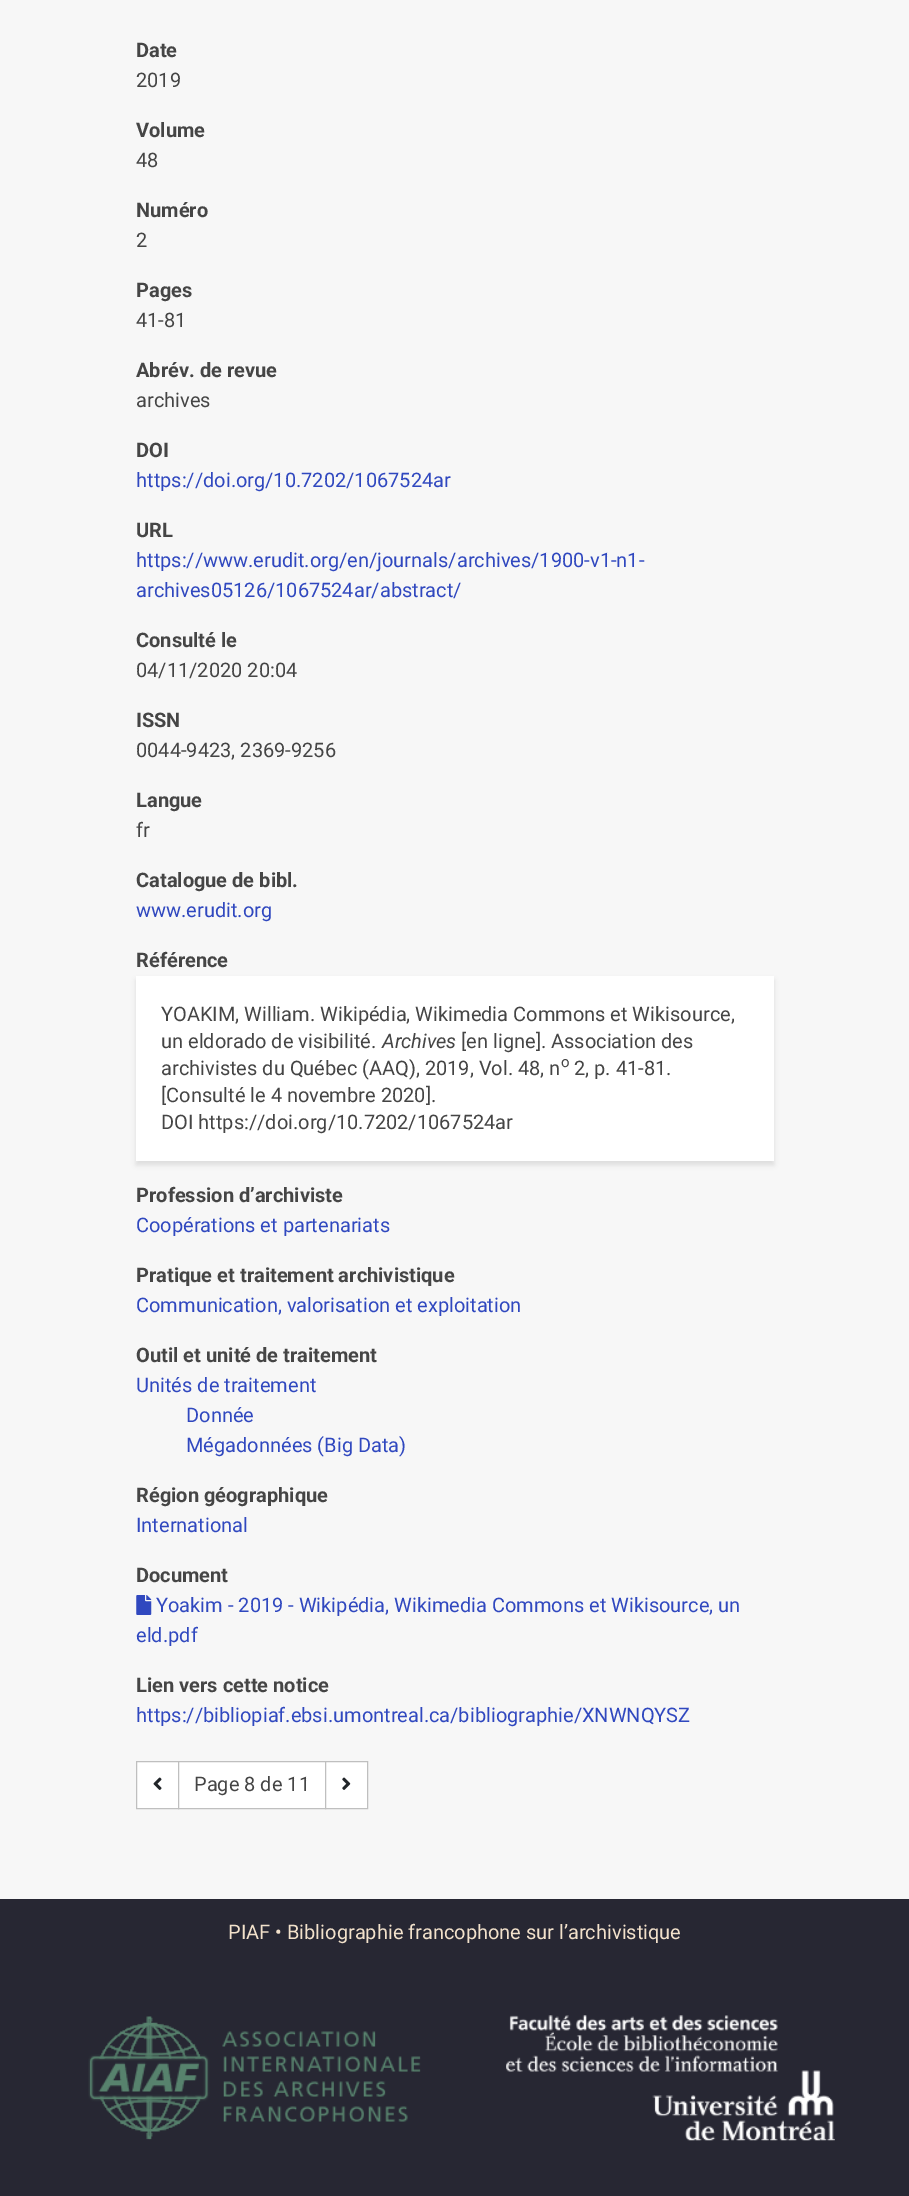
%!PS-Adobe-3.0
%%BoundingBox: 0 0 909 2196
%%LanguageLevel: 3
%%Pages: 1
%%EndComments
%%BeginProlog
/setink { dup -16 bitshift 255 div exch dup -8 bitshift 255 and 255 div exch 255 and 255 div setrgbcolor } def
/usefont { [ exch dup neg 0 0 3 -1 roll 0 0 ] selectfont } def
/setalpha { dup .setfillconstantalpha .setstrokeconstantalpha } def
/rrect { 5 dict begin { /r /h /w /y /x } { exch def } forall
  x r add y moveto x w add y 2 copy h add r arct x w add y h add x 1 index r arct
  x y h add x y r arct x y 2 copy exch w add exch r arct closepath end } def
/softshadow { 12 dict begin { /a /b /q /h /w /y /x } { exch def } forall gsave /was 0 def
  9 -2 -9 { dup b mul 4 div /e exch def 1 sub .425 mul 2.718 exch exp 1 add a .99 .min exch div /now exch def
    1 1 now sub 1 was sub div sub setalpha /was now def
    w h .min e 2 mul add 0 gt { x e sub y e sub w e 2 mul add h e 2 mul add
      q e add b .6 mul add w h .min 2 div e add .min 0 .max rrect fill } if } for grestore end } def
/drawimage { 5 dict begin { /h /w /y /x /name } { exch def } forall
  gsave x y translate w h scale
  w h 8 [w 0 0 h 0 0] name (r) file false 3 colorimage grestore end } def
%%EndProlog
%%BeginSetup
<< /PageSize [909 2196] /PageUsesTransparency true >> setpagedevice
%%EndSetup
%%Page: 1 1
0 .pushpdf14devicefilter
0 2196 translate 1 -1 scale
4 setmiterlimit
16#F7F7F7 setink
0 0 909 2196 rectfill
/Roboto-Bold 20 usefont
16#454545 setink
136 57 moveto (Date) show
/Roboto-Regular 20 usefont
136 87 moveto (2019) show
/Roboto-Bold 20 usefont
136 137 moveto (Volume) show
/Roboto-Regular 20 usefont
136 167 moveto (48) show
/Roboto-Bold 20 usefont
136 217 moveto (Numéro) show
/Roboto-Regular 20 usefont
136 247 moveto (2) show
/Roboto-Bold 20 usefont
136 297 moveto (Pages) show
/Roboto-Regular 20 usefont
136 327 moveto (41-81) show
/Roboto-Bold 20 usefont
136 377 moveto (Abrév. de revue) show
/Roboto-Regular 20 usefont
136 407 moveto (archives) show
/Roboto-Bold 20 usefont
136 457 moveto (DOI) show
/Roboto-Regular 20 usefont
16#3048BF setink
136 487 moveto (https://doi.org/10.7202/1067524ar) show
/Roboto-Bold 20 usefont
16#454545 setink
136 537 moveto (URL) show
/Roboto-Regular 20 usefont
16#3048BF setink
136 567 moveto (https://www.erudit.org/en/journals/archives/1900-v1-n1-) show
136 597 moveto (archives05126/1067524ar/abstract/) show
/Roboto-Bold 20 usefont
16#454545 setink
136 647 moveto (Consulté le) show
/Roboto-Regular 20 usefont
136 677 moveto (04/11/2020 20:04) show
/Roboto-Bold 20 usefont
136 727 moveto (ISSN) show
/Roboto-Regular 20 usefont
136 757 moveto (0044-9423, 2369-9256) show
/Roboto-Bold 20 usefont
136 807 moveto (Langue) show
/Roboto-Regular 20 usefont
136 837 moveto (fr) show
/Roboto-Bold 20 usefont
136 887 moveto (Catalogue de bibl.) show
/Roboto-Regular 20 usefont
16#3048BF setink
136 917 moveto (www.erudit.org) show
/Roboto-Bold 20 usefont
16#454545 setink
136 967 moveto (Référence) show
16#000000 setink
136 980 638 185 0 2.5 0.1 softshadow
16#FFFFFF setink
136 976 638 185 rectfill
/Roboto-Regular 20 usefont
16#454545 setink
161 1021 moveto (YOAKIM, William. Wikipédia, Wikimedia Commons et Wikisource,) show
161 1048 moveto (un eldorado de visibilité.) show
/Roboto-Italic 20 usefont
382 1048 moveto (Archives) show
/Roboto-Regular 20 usefont
461 1048 moveto ([en ligne]. Association des) show
161 1075 moveto (archivistes du Québec \(AAQ\), 2019, Vol. 48, n) show
/Roboto-Regular 15 usefont
561 1067 moveto (o) show
/Roboto-Regular 20 usefont
[
    [(2, p. 41‑81.) 574 1075]
    [([Consulté le 4 novembre 2020].) 161 1102]
    [(DOI https://doi.org/10.7202/1067524ar) 161 1129]
] { aload pop moveto show } forall
/Roboto-Bold 20 usefont
136 1202 moveto (Profession d’archiviste) show
/Roboto-Regular 20 usefont
16#3048BF setink
136 1232 moveto (Coopérations et partenariats) show
/Roboto-Bold 20 usefont
16#454545 setink
136 1282 moveto (Pratique et traitement archivistique) show
/Roboto-Regular 20 usefont
16#3048BF setink
136 1312 moveto (Communication, valorisation et exploitation) show
/Roboto-Bold 20 usefont
16#454545 setink
136 1362 moveto (Outil et unité de traitement) show
/Roboto-Regular 20 usefont
16#3048BF setink
[
    [(Unités de traitement) 136 1392]
    [(Donnée) 186 1422]
    [(Mégadonnées \(Big Data\)) 186 1452]
] { aload pop moveto show } forall
/Roboto-Bold 20 usefont
16#454545 setink
136 1502 moveto (Région géographique) show
/Roboto-Regular 20 usefont
16#3048BF setink
136 1532 moveto (International) show
/Roboto-Bold 20 usefont
16#454545 setink
136 1582 moveto (Document) show
(img1.raw) 136 1595 16 20 drawimage
/Roboto-Regular 20 usefont
16#3048BF setink
156 1612 moveto (Yoakim - 2019 - Wikipédia, Wikimedia Commons et Wikisource, un) show
136 1642 moveto (eld.pdf) show
/Roboto-Bold 20 usefont
16#454545 setink
136 1692 moveto (Lien vers cette notice) show
/Roboto-Regular 20 usefont
16#3048BF setink
136 1722 moveto (https://bibliopiaf.ebsi.umontreal.ca/bibliographie/XNWNQYSZ) show
16#FFFFFF setink
136.5 1761.5 moveto 178.5 1761.5 lineto 178.5 1808.5 lineto 136.5 1808.5 lineto closepath gsave fill grestore
16#BFBFBF setink
stroke
(img2.raw) 153 1777 9 13 drawimage
16#FFFFFF setink
178.5 1761.5 moveto 325.5 1761.5 lineto 325.5 1808.5 lineto 178.5 1808.5 lineto closepath gsave fill grestore
16#BFBFBF setink
stroke
16#454545 setink
194 1791 moveto (Page 8 de 11) show
16#FFFFFF setink
325.5 1761.5 moveto 367.5 1761.5 lineto 367.5 1808.5 lineto 325.5 1808.5 lineto closepath gsave fill grestore
16#BFBFBF setink
stroke
(img3.raw) 342 1777 9 13 drawimage
16#272733 setink
0 1899 909 297 rectfill
16#F2E1CB setink
228 1939 moveto (PIAF • Bibliographie francophone sur l’archivistique) show
(img4.raw) 88 2016 333 124 drawimage
(img5.raw) 506 2015 329 126 drawimage
.poppdf14devicefilter showpage
%%EOF
